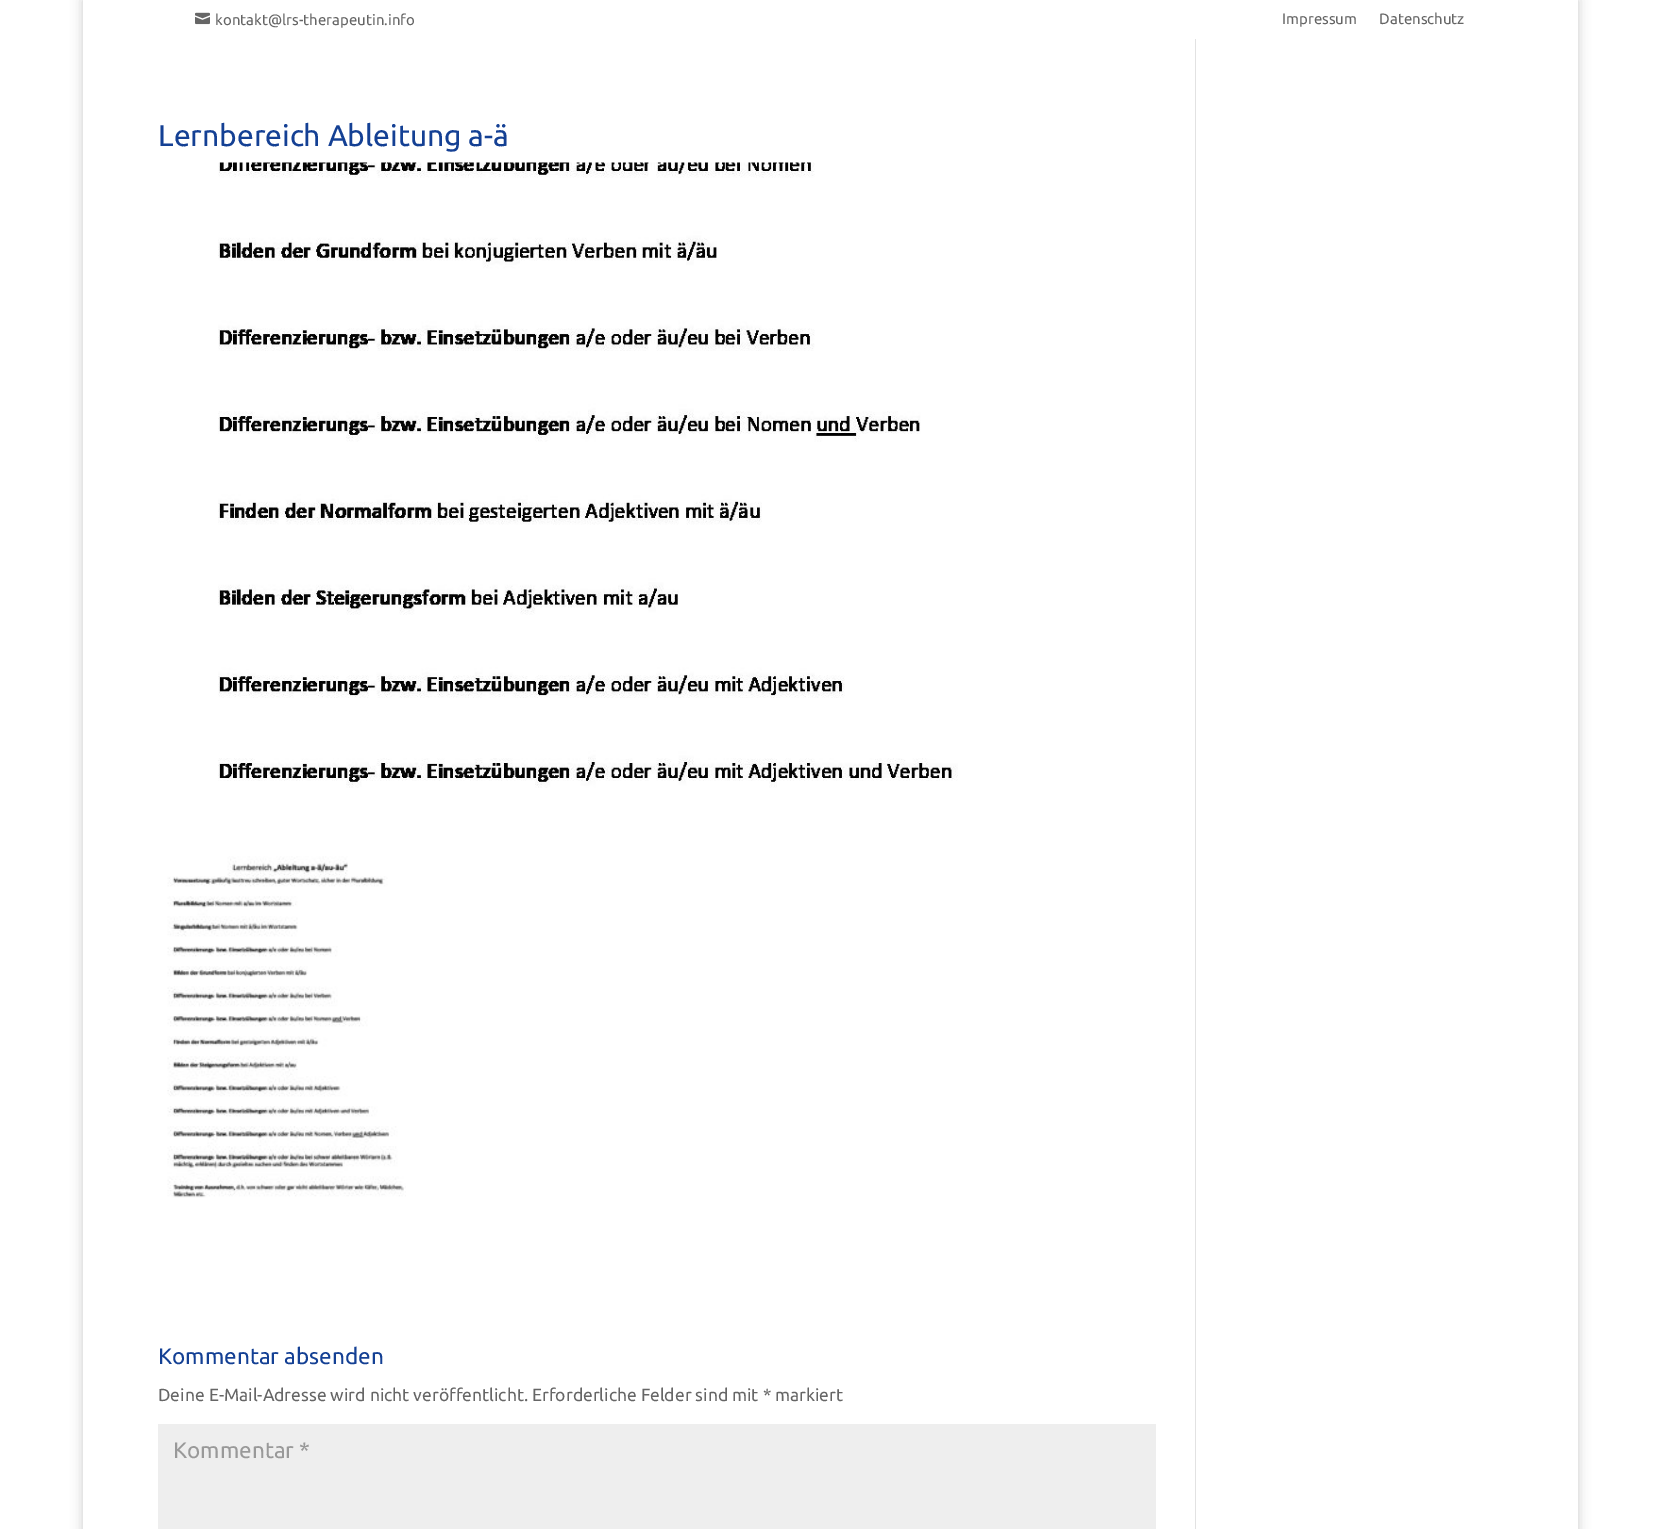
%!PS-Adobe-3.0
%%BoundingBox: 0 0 1659 1529
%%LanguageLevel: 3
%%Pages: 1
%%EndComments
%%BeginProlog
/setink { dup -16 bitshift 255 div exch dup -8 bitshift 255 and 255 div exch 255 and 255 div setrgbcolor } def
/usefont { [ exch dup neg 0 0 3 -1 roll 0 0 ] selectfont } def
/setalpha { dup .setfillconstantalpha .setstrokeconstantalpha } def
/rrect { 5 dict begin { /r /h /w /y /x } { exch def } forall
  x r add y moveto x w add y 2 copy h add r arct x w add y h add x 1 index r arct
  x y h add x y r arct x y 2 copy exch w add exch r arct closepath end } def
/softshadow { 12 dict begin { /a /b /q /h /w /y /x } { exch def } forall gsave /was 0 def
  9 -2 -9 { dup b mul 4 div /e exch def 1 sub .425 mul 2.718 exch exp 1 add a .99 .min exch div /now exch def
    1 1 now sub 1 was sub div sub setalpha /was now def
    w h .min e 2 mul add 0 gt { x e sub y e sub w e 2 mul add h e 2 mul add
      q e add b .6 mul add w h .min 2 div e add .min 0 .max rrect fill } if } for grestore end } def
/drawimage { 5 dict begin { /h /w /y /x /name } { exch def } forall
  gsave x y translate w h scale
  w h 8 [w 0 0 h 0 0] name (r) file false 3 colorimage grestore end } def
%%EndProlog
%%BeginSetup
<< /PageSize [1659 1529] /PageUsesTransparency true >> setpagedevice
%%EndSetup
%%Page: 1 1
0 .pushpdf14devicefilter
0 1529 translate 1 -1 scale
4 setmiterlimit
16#FFFFFF setink
0 0 1659 1529 rectfill
16#000000 setink
83 0 1495 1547 0 6 0.2 softshadow
16#FFFFFF setink
83 0 1495 1529 rectfill
(img1.raw) 195 12 15 13 drawimage
/Ubuntu-Regular 15 usefont
16#666666 setink
[
    [(kontakt@lrs-therapeutin.info) 215 25]
    [(Impressum) 1282 24]
    [(Datenschutz) 1379 24]
] { aload pop moveto show } forall
/Ubuntu-Regular 30 usefont
16#144094 setink
158 146 moveto (Lernbereich Ableitung a-ä) show
(img2.raw) 218 162 740 626 drawimage
(img3.raw) 167 856 239 342 drawimage
/Ubuntu-Regular 22.5 usefont
158 1364 moveto (Kommentar absenden) show
/Ubuntu-Regular 17.5 usefont
16#666666 setink
158 1401 moveto (Deine E-Mail-Adresse wird nicht veröffentlicht. Erforderliche Felder sind mit * markiert) show
16#EEEEEE setink
158 1424 998 105 rectfill
/Ubuntu-Regular 22.5 usefont
16#999999 setink
173 1458 moveto (Kommentar *) show
16#E2E2E2 setink
1195 39 1 1490 rectfill
.poppdf14devicefilter showpage
%%EOF
